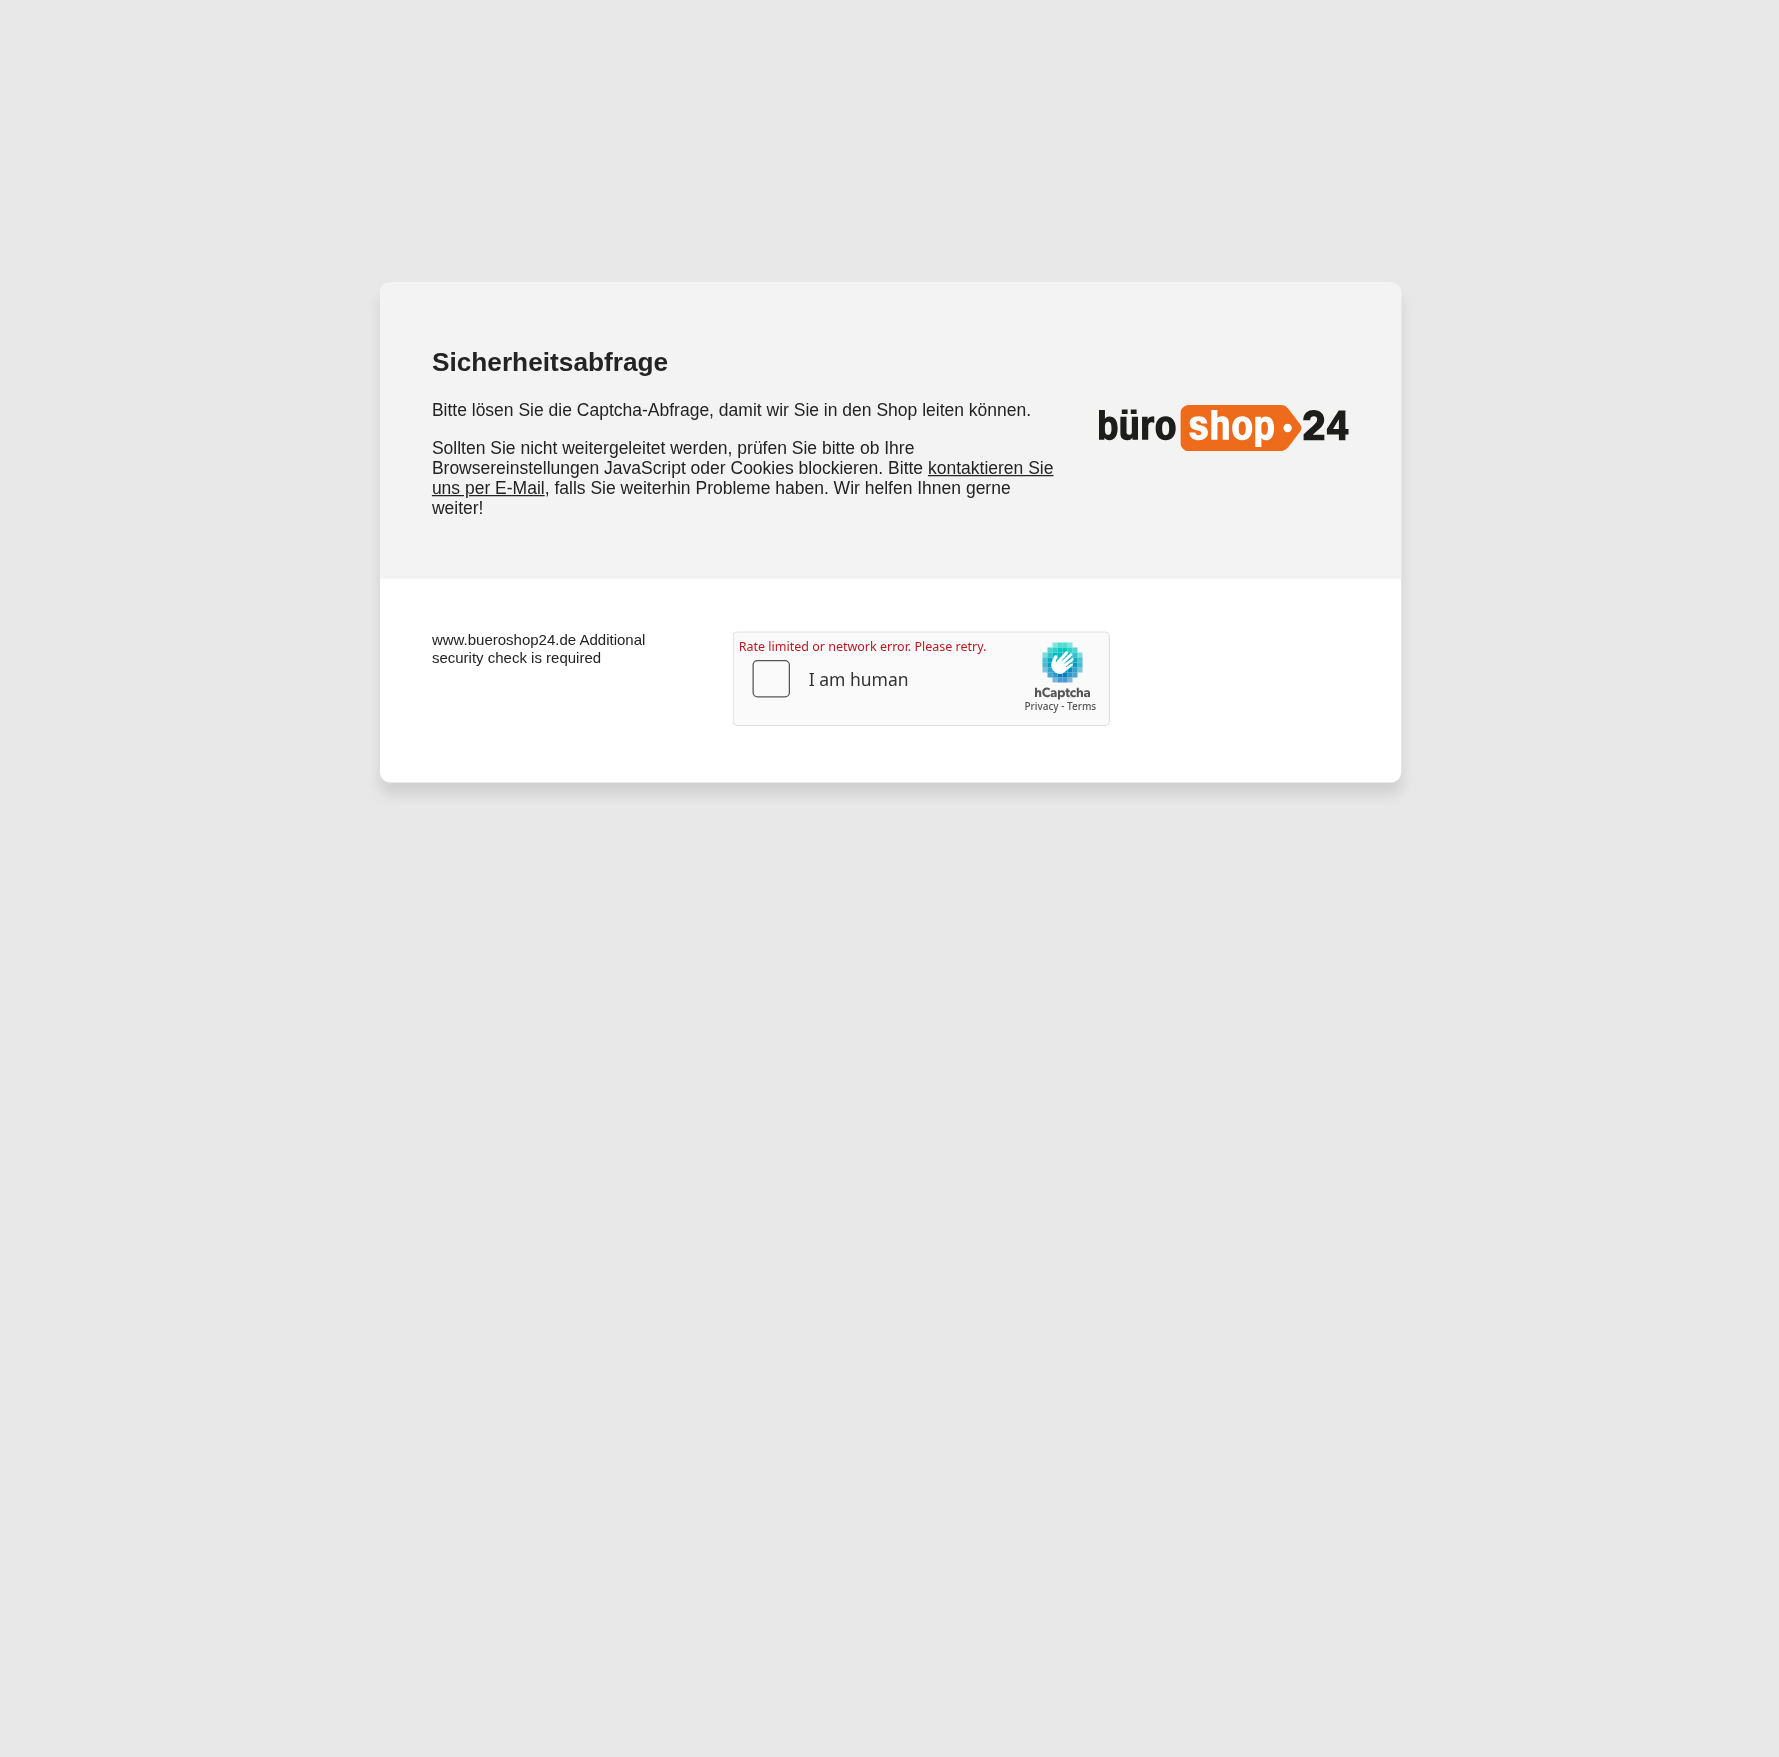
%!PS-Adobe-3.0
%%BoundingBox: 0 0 1779 1757
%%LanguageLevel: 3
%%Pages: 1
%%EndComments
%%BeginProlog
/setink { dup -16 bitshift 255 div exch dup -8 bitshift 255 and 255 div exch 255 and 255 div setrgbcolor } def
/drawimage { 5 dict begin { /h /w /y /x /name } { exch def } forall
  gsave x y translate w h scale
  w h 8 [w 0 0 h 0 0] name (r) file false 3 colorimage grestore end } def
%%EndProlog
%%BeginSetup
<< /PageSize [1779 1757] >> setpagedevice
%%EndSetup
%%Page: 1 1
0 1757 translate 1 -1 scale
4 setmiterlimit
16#FFFFFF setink
0 0 1779 1757 rectfill
(img1.raw) 0 0 1779 1757 drawimage
showpage
%%EOF
